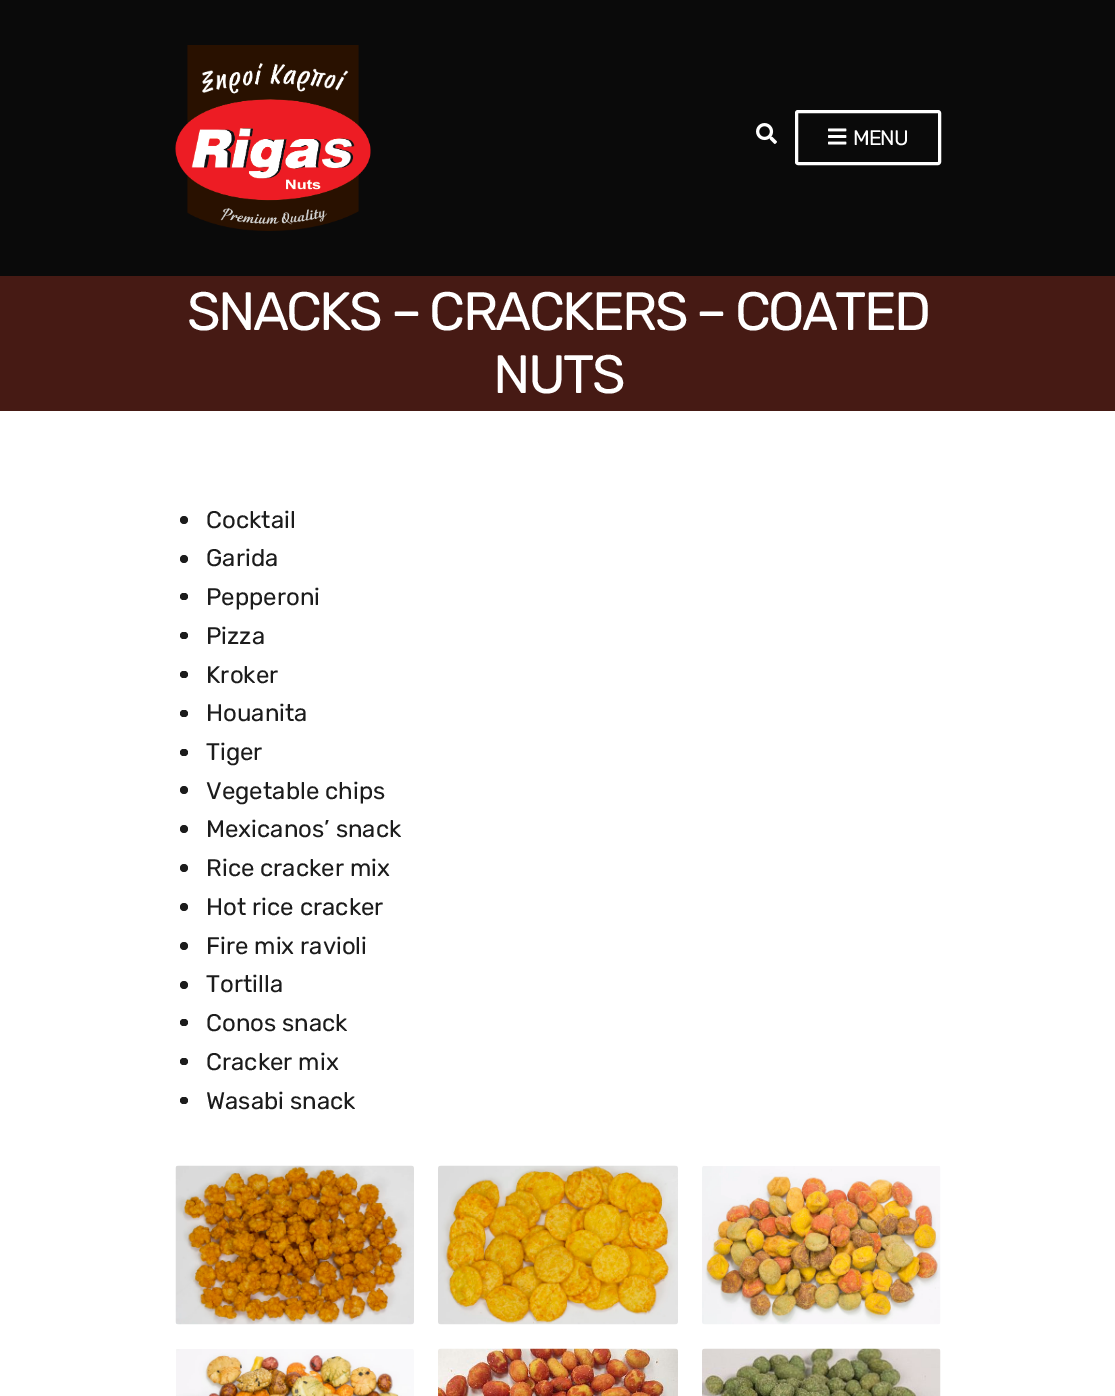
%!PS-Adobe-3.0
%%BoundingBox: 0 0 1115 1396
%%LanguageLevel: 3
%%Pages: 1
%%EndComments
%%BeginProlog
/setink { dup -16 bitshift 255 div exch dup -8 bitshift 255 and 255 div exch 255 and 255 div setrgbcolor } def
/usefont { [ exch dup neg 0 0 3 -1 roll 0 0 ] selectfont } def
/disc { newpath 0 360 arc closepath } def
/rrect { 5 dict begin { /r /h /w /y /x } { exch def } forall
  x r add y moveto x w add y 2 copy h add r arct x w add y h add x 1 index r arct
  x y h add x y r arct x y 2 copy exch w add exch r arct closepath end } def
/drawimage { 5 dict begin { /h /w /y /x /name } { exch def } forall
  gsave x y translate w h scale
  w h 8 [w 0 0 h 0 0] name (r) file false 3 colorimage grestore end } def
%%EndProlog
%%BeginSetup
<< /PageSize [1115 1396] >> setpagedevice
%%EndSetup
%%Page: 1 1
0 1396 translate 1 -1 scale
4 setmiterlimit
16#FFFFFF setink
0 0 1115 1396 rectfill
16#0A0A0A setink
0 0 1115 276 rectfill
(img1.raw) 175 45 196 186 drawimage
(img2.raw) 756 123 21 21 drawimage
16#FFFFFF setink
3 setlinewidth
796.5 111.5 143 52 1.5 rrect stroke
(img3.raw) 828 128 19 17 drawimage
/Rubik-Regular 21 usefont
853 145 moveto -1 0 (MENU) ashow
16#461A14 setink
0 276 1115 135 rectfill
/Rubik-Regular 54 usefont
16#FFFFFF setink
187 330 moveto -2.7 0 (SNACKS – CRACKERS – COATED) ashow
493 393 moveto -2.7 0 (NUTS) ashow
16#1C1C1C setink
184 520 4 disc fill
/Rubik-Regular 24 usefont
206 528 moveto (Cocktail) show
184 559 4 disc fill
206 566 moveto (Garida) show
180 593 8 7 3.5 rrect fill
206 605 moveto (Pepperoni) show
180 632 8 7 3.5 rrect fill
206 644 moveto (Pizza) show
180 671 8 7 3.5 rrect fill
206 683 moveto (Kroker) show
180 710 8 7 3.5 rrect fill
206 721 moveto (Houanita) show
180 749 8 7 3.5 rrect fill
206 760 moveto (Tiger) show
184 790 4 disc fill
206 799 moveto (Vegetable chips) show
184 829 4 disc fill
206 837 moveto (Mexicanos’ snack) show
184 868 4 disc fill
206 876 moveto (Rice cracker mix) show
184 907 4 disc fill
206 915 moveto (Hot rice cracker) show
184 946 4 disc fill
206 954 moveto (Fire mix ravioli) show
184 985 4 disc fill
206 992 moveto (Tortilla) show
180 1019 8 7 3.5 rrect fill
206 1031 moveto (Conos snack) show
180 1058 8 7 3.5 rrect fill
206 1070 moveto (Cracker mix) show
180 1097 8 7 3.5 rrect fill
206 1109 moveto (Wasabi snack) show
(img4.raw) 175 1165 239 160 drawimage
(img5.raw) 438 1165 240 160 drawimage
(img6.raw) 702 1166 239 159 drawimage
(img7.raw) 176 1349 238 47 drawimage
(img8.raw) 438 1348 240 48 drawimage
(img9.raw) 702 1348 239 48 drawimage
showpage
%%EOF
